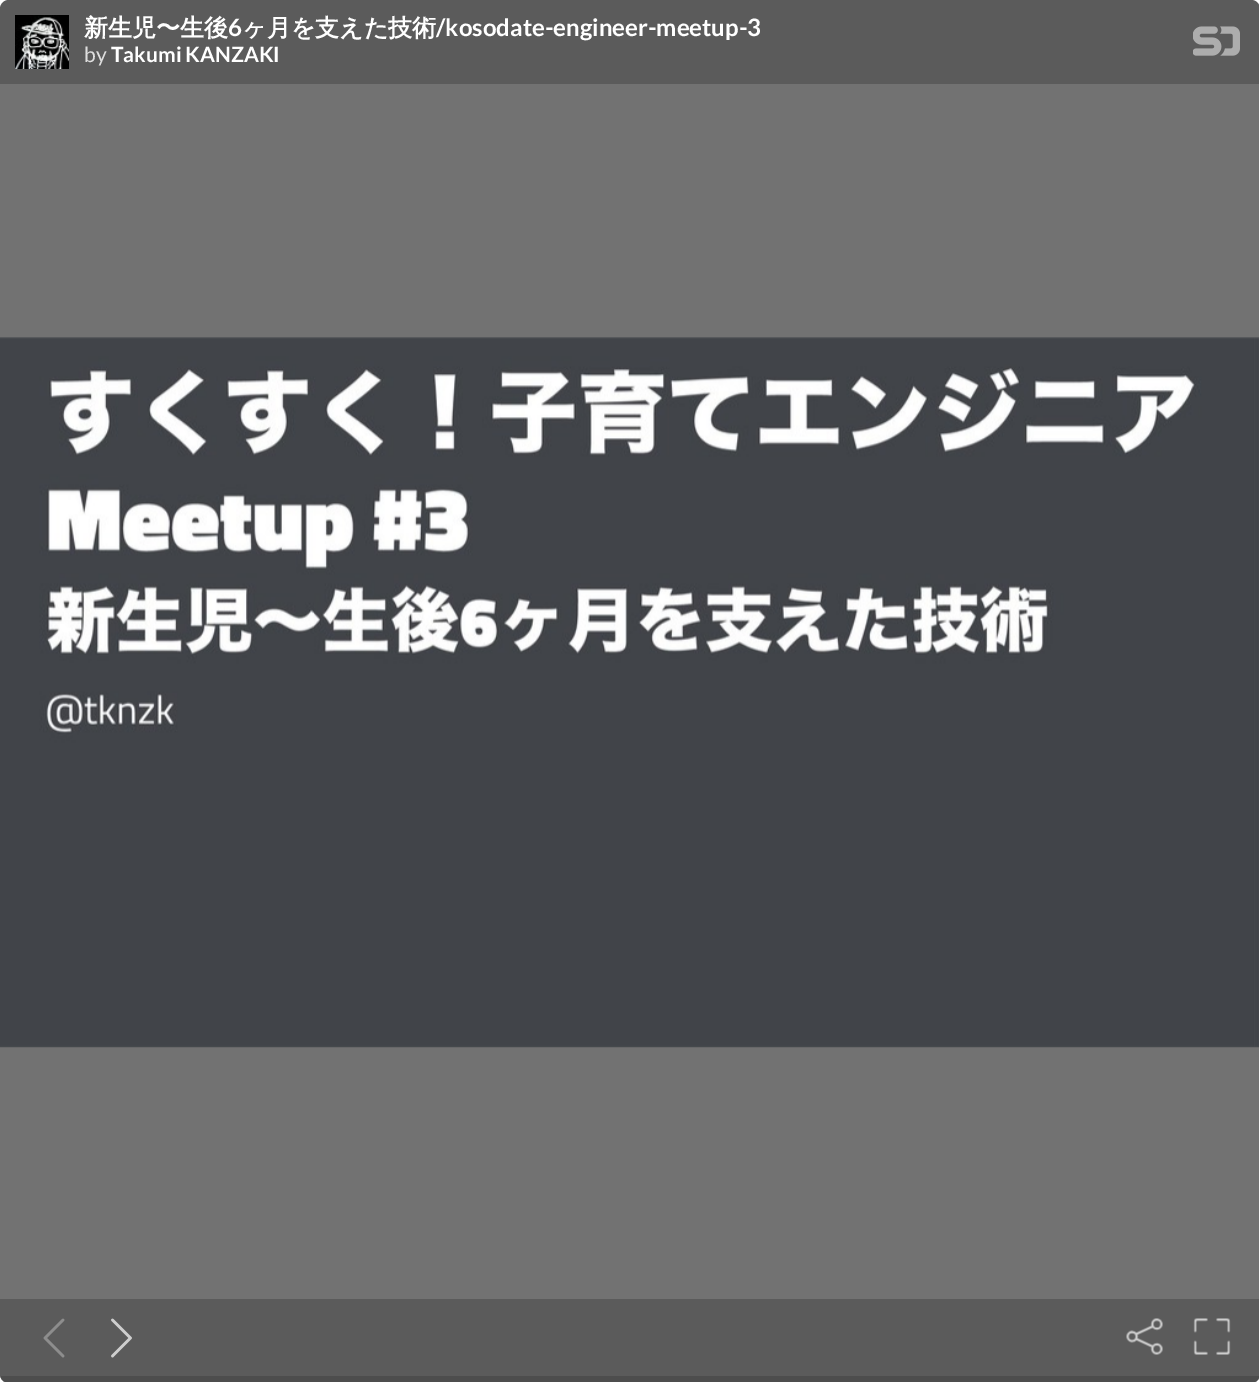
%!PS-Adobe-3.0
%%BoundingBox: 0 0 1259 1382
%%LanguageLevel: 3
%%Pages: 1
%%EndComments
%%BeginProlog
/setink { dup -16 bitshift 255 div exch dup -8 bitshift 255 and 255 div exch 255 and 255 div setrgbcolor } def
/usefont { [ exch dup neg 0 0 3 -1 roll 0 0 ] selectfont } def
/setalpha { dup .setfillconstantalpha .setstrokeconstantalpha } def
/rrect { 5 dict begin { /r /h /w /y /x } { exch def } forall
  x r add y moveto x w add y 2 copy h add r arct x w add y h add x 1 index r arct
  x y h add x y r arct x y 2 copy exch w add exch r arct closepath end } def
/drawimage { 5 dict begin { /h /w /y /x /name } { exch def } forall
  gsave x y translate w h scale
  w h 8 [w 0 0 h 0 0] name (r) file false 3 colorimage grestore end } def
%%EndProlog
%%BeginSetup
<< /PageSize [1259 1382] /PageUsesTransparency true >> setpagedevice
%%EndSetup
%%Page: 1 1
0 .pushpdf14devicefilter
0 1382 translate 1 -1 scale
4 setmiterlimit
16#FFFFFF setink
0 0 1259 1382 rectfill
16#727272 setink
0 0 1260 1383 9 rrect fill
(img1.raw) 0 337 1259 711 drawimage
0.2 setalpha
16#000000 setink
9 0 moveto 1251 0 lineto 1256 0 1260 4 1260 9 curveto 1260 84 lineto 0 84 lineto 0 9 lineto 0 4 4 0 9 0 curveto closepath fill
1 setalpha
(img2.raw) 15 15 54 54 drawimage
/WenQuanYiZenHei-Bold 24 usefont
16#FFFFFF setink
84 36 moveto (新生児〜生後) show
/Lato-Bold 24 usefont
228 36 moveto (6) show
/WenQuanYiZenHei-Bold 24 usefont
242 36 moveto (ヶ月を支えた技術) show
/Lato-Bold 24 usefont
436 36 moveto (/kosodate-engineer-meetup-3) show
(img3.raw) 1193 26 47 30 drawimage
/Lato-Regular 21 usefont
16#DEDEDE setink
84 62 moveto (by) show
/Lato-Bold 21 usefont
16#FFFFFF setink
111 62 moveto (Takumi KANZAKI) show
0.2 setalpha
16#000000 setink
0 1299 moveto 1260 1299 lineto 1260 1374 lineto 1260 1379 1256 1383 1251 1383 curveto 9 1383 lineto 4 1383 0 1379 0 1374 curveto closepath fill
1 setalpha
(img4.raw) 43 1318 22 40 drawimage
(img5.raw) 111 1318 21 40 drawimage
(img6.raw) 1126 1318 37 37 drawimage
(img7.raw) 1193 1318 38 37 drawimage
gsave
0 0 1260 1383 9 rrect clip newpath
0.15 setalpha
0 1376 1259 6 rectfill
grestore
.poppdf14devicefilter showpage
%%EOF
